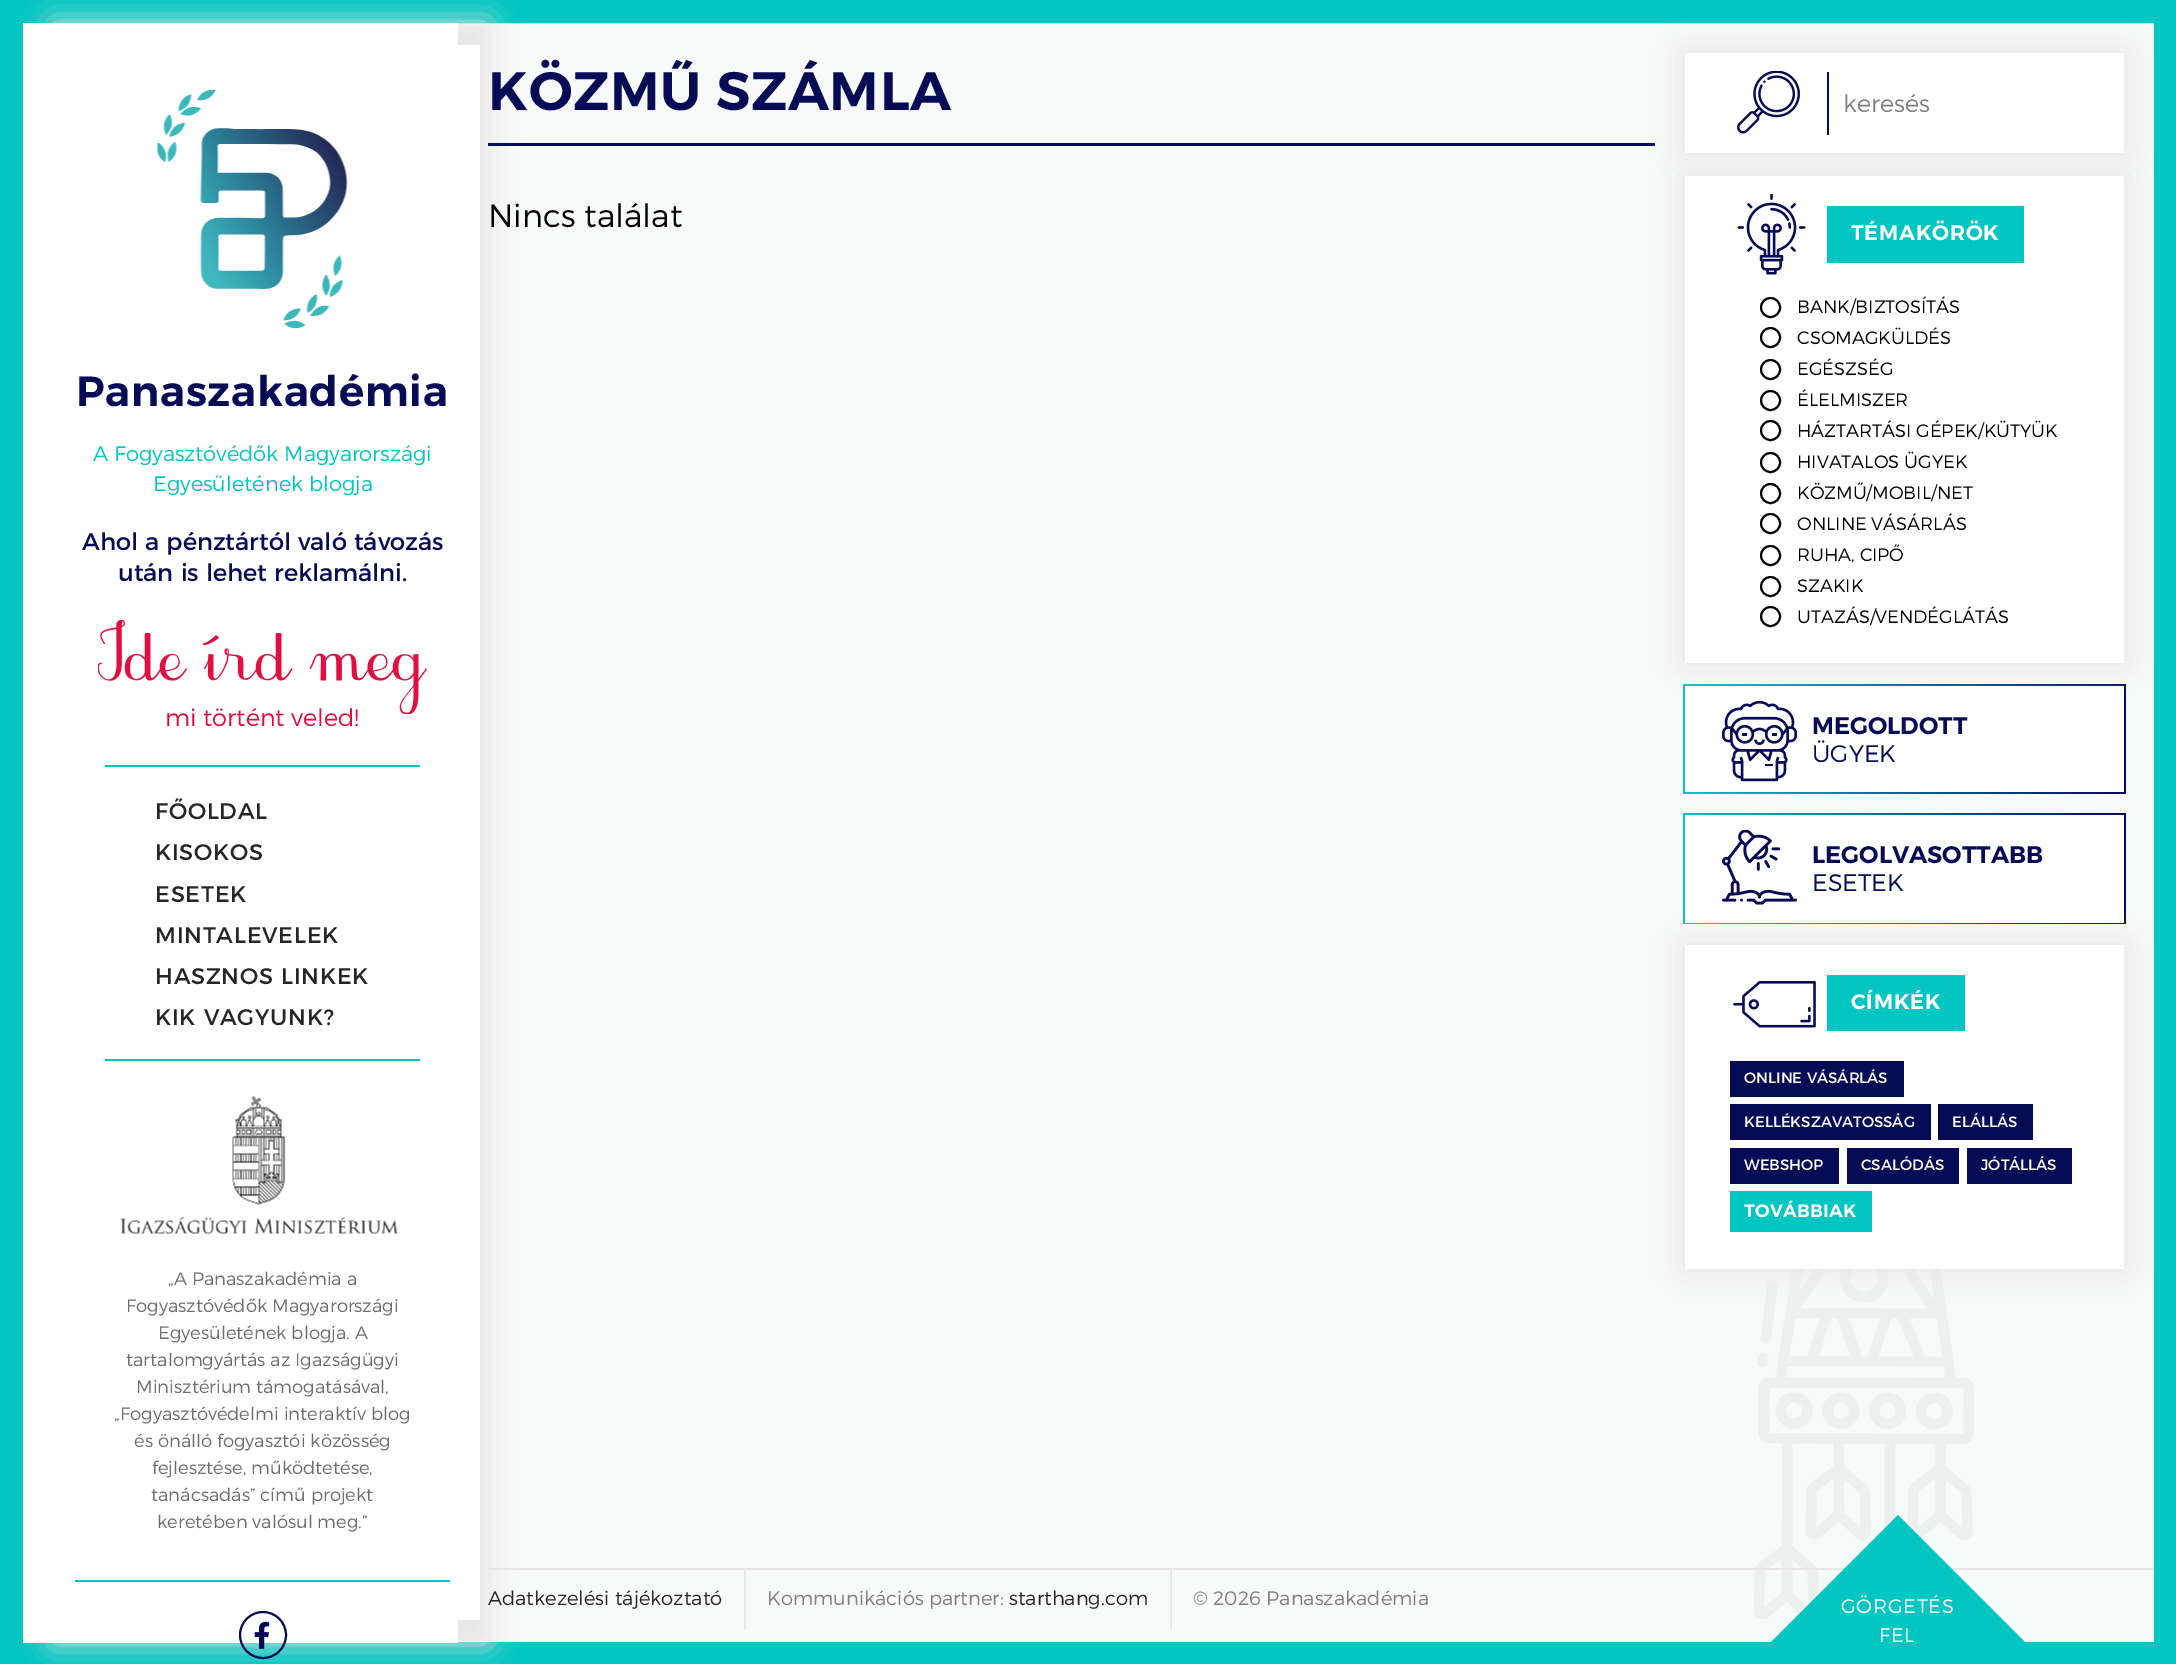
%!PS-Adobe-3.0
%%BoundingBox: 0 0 2176 1664
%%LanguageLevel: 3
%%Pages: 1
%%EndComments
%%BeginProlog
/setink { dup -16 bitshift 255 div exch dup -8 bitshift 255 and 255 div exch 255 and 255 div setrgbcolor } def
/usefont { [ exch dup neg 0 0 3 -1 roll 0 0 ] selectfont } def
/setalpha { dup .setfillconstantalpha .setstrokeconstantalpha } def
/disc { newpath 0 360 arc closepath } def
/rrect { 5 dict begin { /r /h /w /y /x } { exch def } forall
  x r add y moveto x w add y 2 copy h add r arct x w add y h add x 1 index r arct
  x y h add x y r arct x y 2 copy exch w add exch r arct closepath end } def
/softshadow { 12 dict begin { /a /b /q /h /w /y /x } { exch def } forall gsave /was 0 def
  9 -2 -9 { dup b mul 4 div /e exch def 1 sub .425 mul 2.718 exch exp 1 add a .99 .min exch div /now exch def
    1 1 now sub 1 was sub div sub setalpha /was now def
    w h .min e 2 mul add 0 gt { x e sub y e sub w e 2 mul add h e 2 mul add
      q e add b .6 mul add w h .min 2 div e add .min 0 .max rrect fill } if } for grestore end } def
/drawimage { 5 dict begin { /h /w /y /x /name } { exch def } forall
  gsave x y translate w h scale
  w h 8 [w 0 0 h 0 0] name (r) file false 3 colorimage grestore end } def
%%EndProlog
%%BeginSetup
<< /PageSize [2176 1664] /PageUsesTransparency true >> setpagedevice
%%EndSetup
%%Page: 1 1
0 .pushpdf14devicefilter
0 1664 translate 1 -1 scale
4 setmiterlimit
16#F8F9F9 setink
0 0 2176 1664 rectfill
(img10.raw) 1754 1269 220 350 drawimage
16#01C6C1 setink
23 setlinewidth
11.5 11.5 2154 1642 rectstroke
16#E5E5E5 setink
53 23 435 1620 0 15 1 softshadow
16#FFFFFF setink
23 23 435 1620 rectfill
16#060B56 setink
488 143 1167 3 rectfill
/Montserrat-SemiBold 54 usefont
488 110 moveto 0.75 0 (KÖZMŰ SZÁMLA) ashow
/Montserrat-Light 32 usefont
16#000000 setink
488 227 moveto (Nincs találat) show
16#E5E5E5 setink
1685 53 439 100 0 15 1 softshadow
16#FFFFFF setink
1685 53 439 100 rectfill
(img1.raw) 1737 71 63 63 drawimage
16#060B56 setink
1827 72 2 63 rectfill
/Montserrat-Light 24 usefont
16#808080 setink
1843 112 moveto (keresés) show
gsave 1683 684 moveto 2126 684 lineto 2126 794 lineto 1683 794 lineto closepath clip newpath
<< /ShadingType 2 /ColorSpace /DeviceRGB /Coords [2126 739 1683 739] /Extend [true true] /Function << /FunctionType 2 /Domain [0 1] /C0 [0.024 0.043 0.337] /C1 [0.004 0.776 0.757] /N 1 >> >> shfill grestore
16#E5E5E5 setink
1685 176 439 487 0 15 1 softshadow
16#FFFFFF setink
1685 176 439 487 rectfill
16#01C6C1 setink
1827 206 197 57 rectfill
(img2.raw) 1737 194 69 81 drawimage
/Montserrat-SemiBold 21 usefont
16#FFFFFF setink
1851 240 moveto 0.75 0 (TÉMAKÖRÖK) ashow
16#000000 setink
2 setlinewidth
1770.5 307.5 9.5 disc stroke
/Montserrat-Light 18 usefont
1797 313 moveto (BANK/BIZTOSÍTÁS) show
1770.5 337.5 9.5 disc stroke
1797 344 moveto (CSOMAGKÜLDÉS) show
1770.5 369.5 9.5 disc stroke
1797 375 moveto (EGÉSZSÉG) show
1770.5 400.5 9.5 disc stroke
1797 406 moveto (ÉLELMISZER) show
1770.5 430.5 9.5 disc stroke
1797 437 moveto (HÁZTARTÁSI GÉPEK/KÜTYÜK) show
1770.5 462.5 9.5 disc stroke
1797 468 moveto (HIVATALOS ÜGYEK) show
1770.5 493.5 9.5 disc stroke
1797 499 moveto (KÖZMŰ/MOBIL/NET) show
1770.5 523.5 9.5 disc stroke
1797 530 moveto (ONLINE VÁSÁRLÁS) show
1770.5 555.5 9.5 disc stroke
1797 561 moveto (RUHA, CIPŐ) show
1770.5 586.5 9.5 disc stroke
1797 592 moveto (SZAKIK) show
1770.5 616.5 9.5 disc stroke
1797 623 moveto (UTAZÁS/VENDÉGLÁTÁS) show
16#FFFFFF setink
1685 686 439 106 rectfill
(img3.raw) 1722 701 75 81 drawimage
/Montserrat-SemiBold 24 usefont
16#060B56 setink
1812 734 moveto (MEGOLDOTT) show
/Montserrat-Light 24 usefont
1812 762 moveto (ÜGYEK) show
gsave 1683 813 moveto 2126 813 lineto 2126 924 lineto 1683 924 lineto closepath clip newpath
<< /ShadingType 2 /ColorSpace /DeviceRGB /Coords [2126 869 1683 869] /Extend [true true] /Function << /FunctionType 2 /Domain [0 1] /C0 [0.024 0.043 0.337] /C1 [0.004 0.776 0.757] /N 1 >> >> shfill grestore
16#FFFFFF setink
1685 815 439 108 rectfill
(img4.raw) 1722 830 75 75 drawimage
/Montserrat-SemiBold 24 usefont
16#060B56 setink
1812 863 moveto (LEGOLVASOTTABB) show
/Montserrat-Light 24 usefont
1812 891 moveto (ESETEK) show
16#E5E5E5 setink
1685 945 439 324 0 15 1 softshadow
16#FFFFFF setink
1685 945 439 324 rectfill
16#01C6C1 setink
1827 975 138 56 rectfill
(img5.raw) 1733 981 83 47 drawimage
/Montserrat-SemiBold 21 usefont
16#FFFFFF setink
1851 1009 moveto 0.75 0 (CÍMKÉK) ashow
16#060B56 setink
1730 1061 174 36 rectfill
/Montserrat-Regular 15 usefont
16#FFFFFF setink
1744 1083 moveto (ONLINE VÁSÁRLÁS) show
16#060B56 setink
1730 1104 201 36 rectfill
16#FFFFFF setink
1744 1127 moveto (KELLÉKSZAVATOSSÁG) show
16#060B56 setink
1938 1104 95 36 rectfill
16#FFFFFF setink
1952 1127 moveto (ELÁLLÁS) show
16#060B56 setink
1730 1148 109 36 rectfill
16#FFFFFF setink
1744 1170 moveto (WEBSHOP) show
16#060B56 setink
1847 1148 112 36 rectfill
16#FFFFFF setink
1861 1170 moveto (CSALÓDÁS) show
16#060B56 setink
1967 1148 105 36 rectfill
16#FFFFFF setink
1981 1170 moveto (JÓTÁLLÁS) show
16#01C6C1 setink
1730 1191 142 41 rectfill
/Montserrat-SemiBold 18 usefont
16#FFFFFF setink
1744 1217 moveto 0.25 0 (TOVÁBBIAK) ashow
458 45 22 1575 rectfill
(img6.raw) 156 89 192 240 drawimage
/Montserrat-SemiBold 42 usefont
16#060B56 setink
76 406 moveto 0.75 0 (Panaszakadémia) ashow
/Montserrat-Light 21 usefont
16#01C6C1 setink
93 461 moveto (A Fogyasztóvédők Magyarországi) show
153 491 moveto (Egyesületének blogja) show
/Montserrat-Regular 24 usefont
16#060B56 setink
82 550 moveto (Ahol a pénztártól való távozás) show
118 581 moveto (után is lehet reklamálni.) show
(img7.raw) 98 620 329 94 drawimage
/Montserrat-Light 24 usefont
16#E20A40 setink
165 726 moveto (mi történt veled!) show
16#01C6C1 setink
105 765 315 2 rectfill
105 1059 315 2 rectfill
/Montserrat-Regular 22.5 usefont
16#262626 setink
155 819 moveto 0.75 0 (FŐOLDAL) ashow
155 860 moveto 0.75 0 (KISOKOS) ashow
155 902 moveto 0.75 0 (ESETEK) ashow
155 943 moveto 0.75 0 (MINTALEVELEK) ashow
155 984 moveto 0.75 0 (HASZNOS LINKEK) ashow
155 1025 moveto 0.75 0 (KIK VAGYUNK?) ashow
16#01C6C1 setink
75 1580 375 2 rectfill
(img8.raw) 120 1096 279 138 drawimage
/Montserrat-Light 18 usefont
16#6D6E71 setink
[
    [(„A Panaszakadémia a) 168 1285]
    [(Fogyasztóvédők Magyarországi) 126 1312]
    [(Egyesületének blogja. A) 158 1339]
    [(tartalomgyártás az Igazságügyi) 126 1366]
    [(Minisztérium támogatásával,) 136 1393]
    [(„Fogyasztóvédelmi interaktív blog) 114 1420]
    [(és önálló fogyasztói közösség) 134 1447]
    [(fejlesztése, működtetése,) 152 1474]
    [(tanácsadás” című projekt) 151 1501]
    [(keretében valósul meg.”) 157 1528]
] { aload pop moveto show } forall
16#060B56 setink
263 1635 23 disc stroke
(img9.raw) 254 1621 16 28 drawimage
16#E7E7E7 setink
488 1568 1666 2 rectfill
/Montserrat-Light 19.5 usefont
16#262626 setink
488 1605 moveto (Adatkezelési tájékoztató) show
16#E7E7E7 setink
744 1569 2 60 rectfill
16#808080 setink
767 1605 moveto (Kommunikációs partner:) show
16#262626 setink
1009 1605 moveto (starthang.com) show
16#E7E7E7 setink
1170 1569 2 60 rectfill
16#808080 setink
1193 1605 moveto (© 2026 Panaszakadémia) show
16#01C6C1 setink
2048 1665 moveto 1748 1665 lineto 1898 1515 lineto closepath fill
16#FFFFFF setink
1841 1613 moveto 0.75 0 (GÖRGETÉS) ashow
1879 1642 moveto 0.75 0 (FEL) ashow
.poppdf14devicefilter showpage
%%EOF
